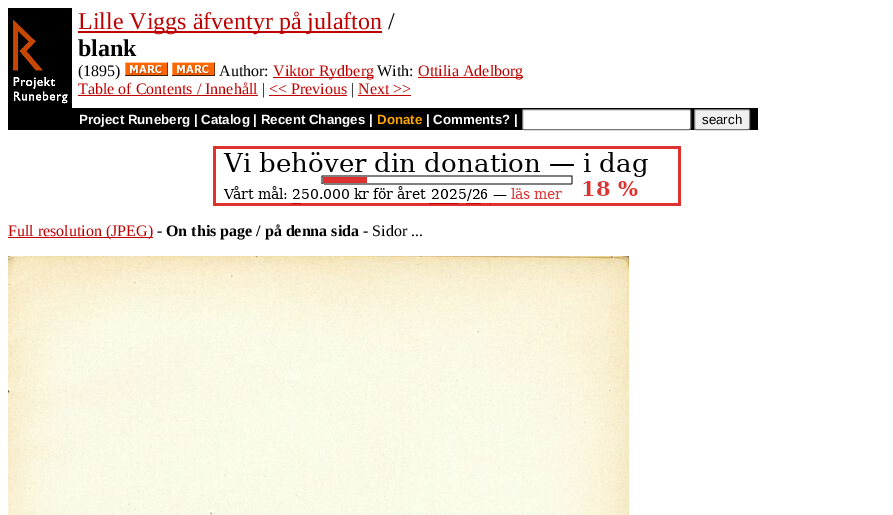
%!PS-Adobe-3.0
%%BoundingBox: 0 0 893 515
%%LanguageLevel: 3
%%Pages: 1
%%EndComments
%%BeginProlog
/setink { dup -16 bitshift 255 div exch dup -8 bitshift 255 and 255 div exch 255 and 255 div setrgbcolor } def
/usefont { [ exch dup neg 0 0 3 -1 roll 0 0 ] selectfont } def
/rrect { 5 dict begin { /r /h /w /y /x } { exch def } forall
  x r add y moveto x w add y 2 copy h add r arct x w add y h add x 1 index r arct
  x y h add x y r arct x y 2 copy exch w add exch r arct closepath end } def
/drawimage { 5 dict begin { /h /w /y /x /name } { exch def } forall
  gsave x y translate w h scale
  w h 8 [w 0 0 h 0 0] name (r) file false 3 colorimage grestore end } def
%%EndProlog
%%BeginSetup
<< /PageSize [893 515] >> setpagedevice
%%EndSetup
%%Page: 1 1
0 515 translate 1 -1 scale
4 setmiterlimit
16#FFFFFF setink
0 0 893 515 rectfill
16#000000 setink
8 8 64 122 rectfill
(img1.raw) 13 20 55 84 drawimage
16#C00000 setink
78 31 304 2 rectfill
/LiberationSerif-Regular 24 usefont
78 29 moveto (Lille Viggs äfventyr på julafton) show
16#000000 setink
388 29 moveto (/) show
/LiberationSerif-Bold 24 usefont
78 56 moveto (blank) show
/LiberationSerif-Regular 16 usefont
78 76 moveto (\(1895\)) show
(img2.raw) 125 62 43 14 drawimage
(img2.raw) 172 62 43 14 drawimage
219 76 moveto (Author:) show
16#C00000 setink
273 77 100 1 rectfill
273 76 moveto (Viktor Rydberg) show
16#000000 setink
377 76 moveto (With:) show
16#C00000 setink
418 77 105 1 rectfill
418 76 moveto (Ottilia Adelborg) show
78 94 moveto (Table of Contents / Innehåll) show
78 95 180 1 rectfill
16#000000 setink
262 94 moveto (|) show
16#C00000 setink
269 94 moveto (<< Previous) show
269 95 78 1 rectfill
16#000000 setink
351 94 moveto (|) show
16#C00000 setink
358 94 moveto (Next >>) show
358 95 53 1 rectfill
16#000000 setink
72 108 686 22 rectfill
/LiberationSans-Bold 13.3 usefont
16#FFFFFF setink
79 124 moveto (Project Runeberg | Catalog | Recent Changes |) show
16#FFA500 setink
377 124 moveto (Donate) show
16#FFFFFF setink
426 124 moveto (| Comments? |) show
522.5 109.5 168 20 1.5 rrect gsave fill grestore
16#767676 setink
stroke
16#EFEFEF setink
694.5 109.5 55 20 1.5 rrect gsave fill grestore
16#767676 setink
stroke
/LiberationSans-Regular 13.3 usefont
16#000000 setink
702 124 moveto (search) show
(img3.raw) 213 146 468 60 drawimage
16#C00000 setink
8 237 145 1 rectfill
/LiberationSerif-Regular 16 usefont
8 236 moveto (Full resolution \(JPEG\)) show
16#000000 setink
157 236 moveto (-) show
/LiberationSerif-Bold 16 usefont
166 236 moveto (On this page / på denna sida) show
/LiberationSerif-Regular 16 usefont
363 236 moveto (- Sidor ...) show
(img4.raw) 8 256 621 259 drawimage
showpage
%%EOF
